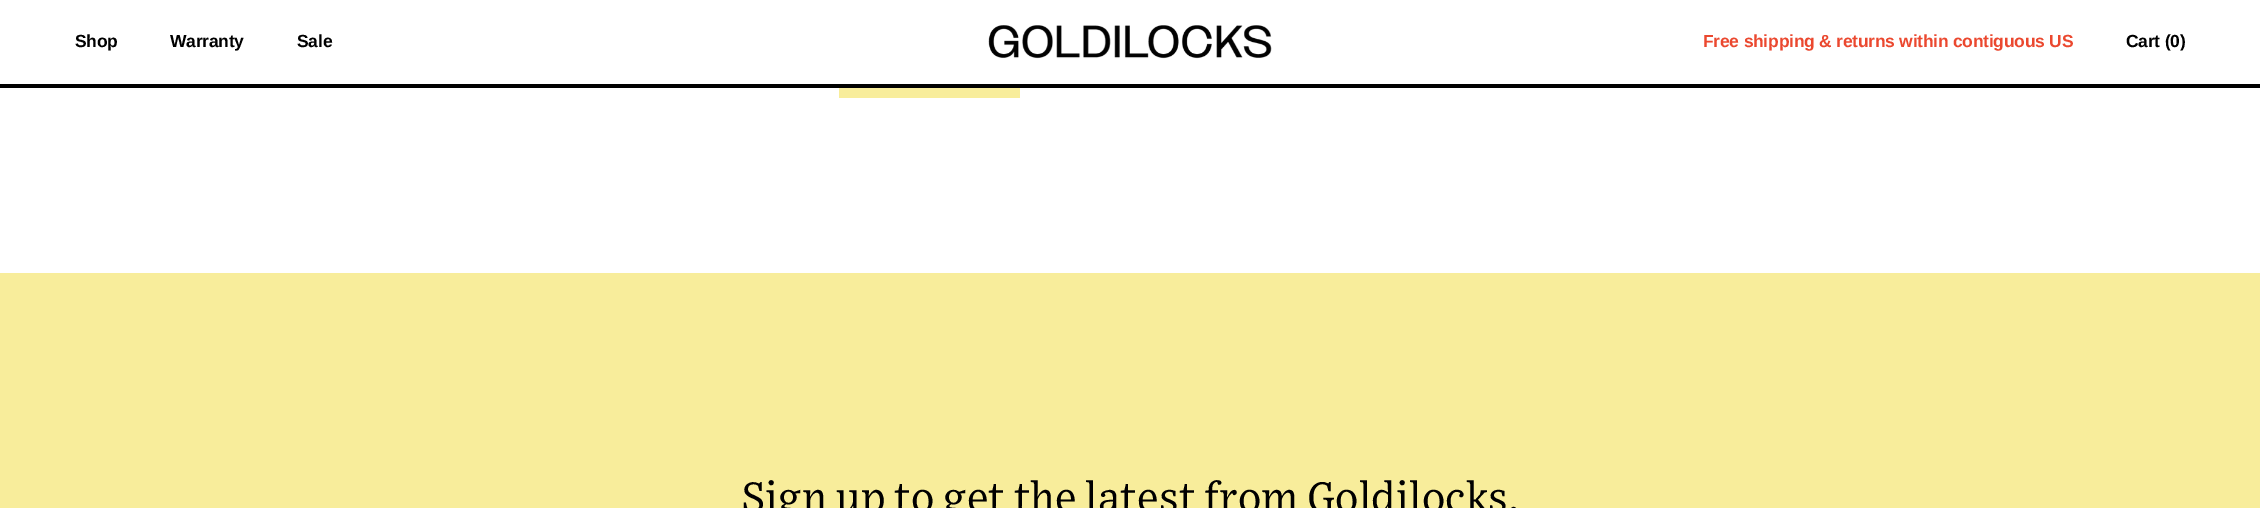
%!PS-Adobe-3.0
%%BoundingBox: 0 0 2260 508
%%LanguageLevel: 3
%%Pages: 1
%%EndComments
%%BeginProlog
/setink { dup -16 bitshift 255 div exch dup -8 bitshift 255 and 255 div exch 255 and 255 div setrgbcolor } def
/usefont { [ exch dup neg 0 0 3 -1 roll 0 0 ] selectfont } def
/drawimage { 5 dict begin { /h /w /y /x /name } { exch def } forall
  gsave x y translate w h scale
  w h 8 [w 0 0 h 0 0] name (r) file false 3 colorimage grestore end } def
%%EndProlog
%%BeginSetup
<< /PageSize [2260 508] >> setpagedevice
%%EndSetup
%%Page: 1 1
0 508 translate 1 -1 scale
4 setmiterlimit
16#FFFFFF setink
0 0 2260 508 rectfill
16#000000 setink
0 84 2260 4 rectfill
(img1.raw) 988 25 284 34 drawimage
/LiberationSans-Bold 17.5 usefont
75 47 moveto -0.25 0 (Shop) ashow
170 47 moveto -0.25 0 (Warranty) ashow
297 47 moveto -0.25 0 (Sale) ashow
16#EB482F setink
1703 47 moveto -0.25 0 (Free shipping & returns within contiguous US) ashow
16#000000 setink
2126 47 moveto -0.25 0 (Cart \(0\)) ashow
16#F8ED9B setink
839 88 181 10 rectfill
0 273 2260 235 rectfill
/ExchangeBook-Regular 42.5 usefont
16#000000 setink
741 512 moveto (Sign up to get the latest from Goldilocks.) show
showpage
%%EOF
